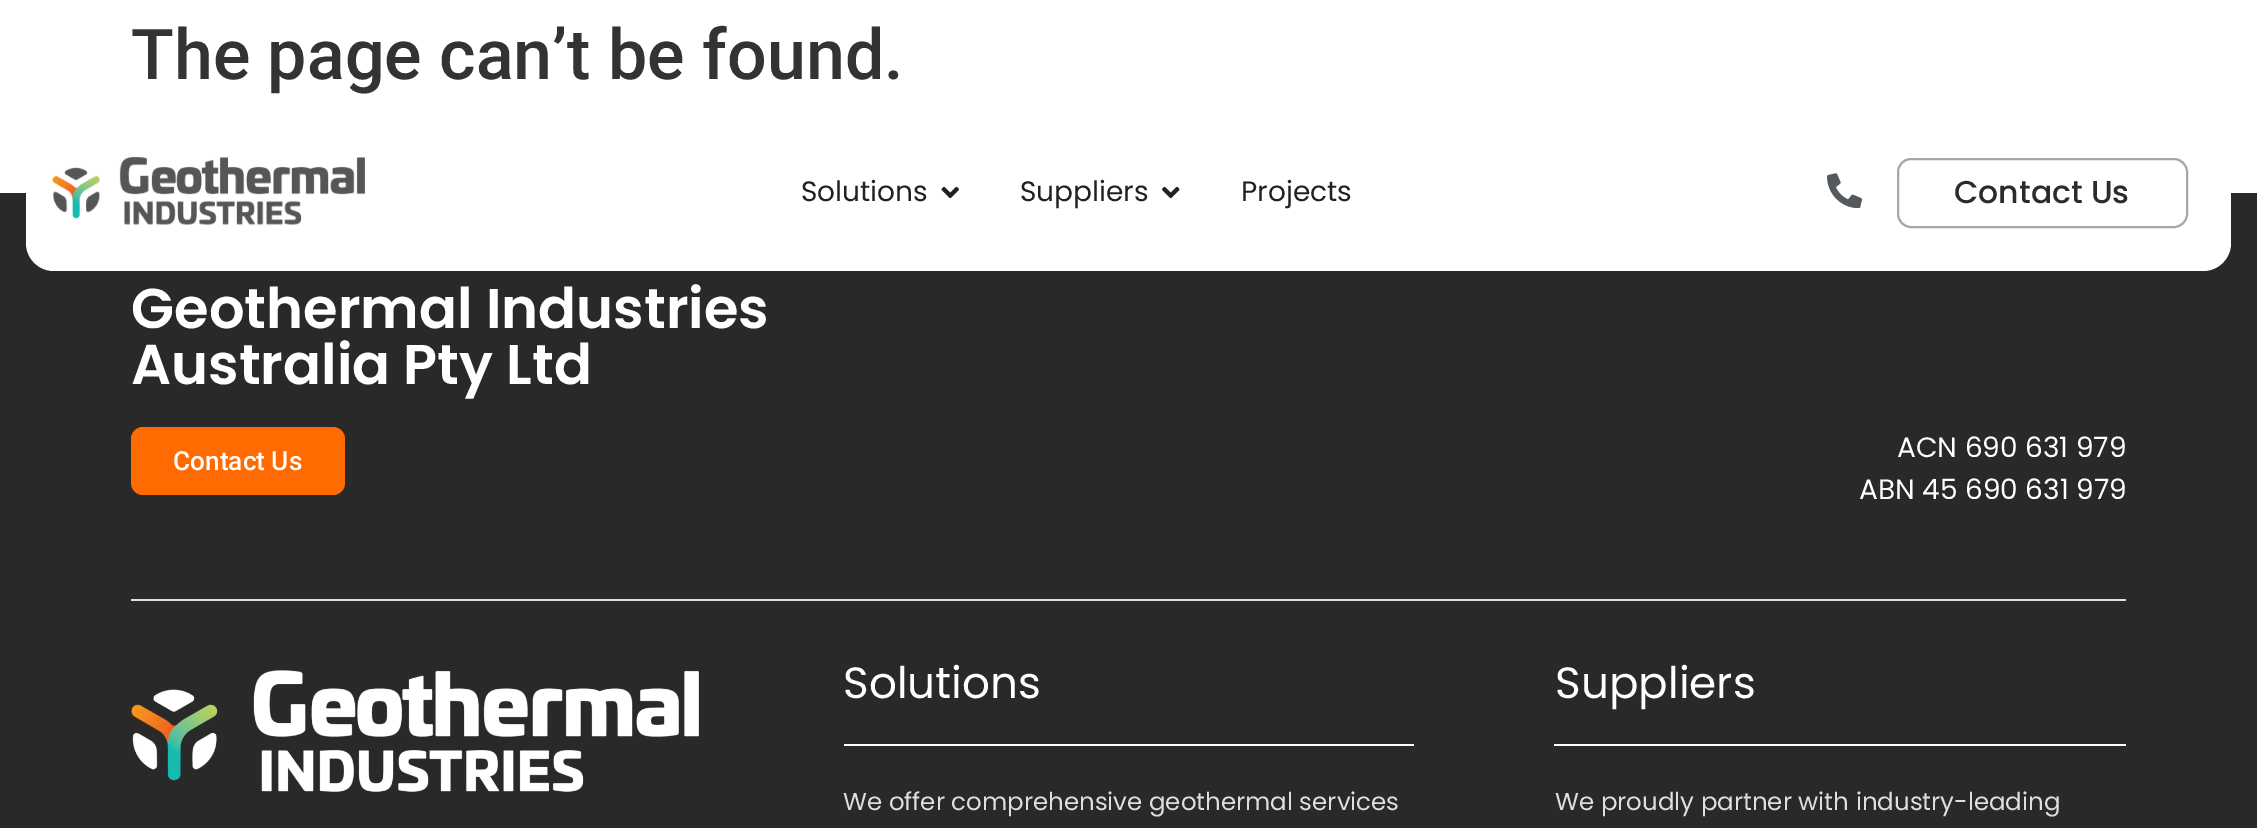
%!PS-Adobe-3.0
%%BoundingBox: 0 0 2257 828
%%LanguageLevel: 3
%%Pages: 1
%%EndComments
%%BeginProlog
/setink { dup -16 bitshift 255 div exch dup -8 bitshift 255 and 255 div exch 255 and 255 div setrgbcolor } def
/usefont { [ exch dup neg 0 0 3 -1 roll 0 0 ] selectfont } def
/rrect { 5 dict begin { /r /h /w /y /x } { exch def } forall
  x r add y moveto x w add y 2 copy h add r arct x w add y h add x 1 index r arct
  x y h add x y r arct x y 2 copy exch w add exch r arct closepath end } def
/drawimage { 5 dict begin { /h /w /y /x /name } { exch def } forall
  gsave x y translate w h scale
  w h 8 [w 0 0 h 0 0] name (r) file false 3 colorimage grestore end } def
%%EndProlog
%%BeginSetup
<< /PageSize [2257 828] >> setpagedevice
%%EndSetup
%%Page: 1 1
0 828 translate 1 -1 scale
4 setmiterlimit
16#FFFFFF setink
0 0 2257 828 rectfill
/Roboto-Medium 70 usefont
16#333333 setink
131 79 moveto (The page can’t be found.) show
16#292929 setink
0 193 2257 635 rectfill
16#FFFFFF setink
26 114 2205 157 28 rrect fill
(img1.raw) 52 156 313 70 drawimage
/Poppins-Regular 28 usefont
16#1F2124 setink
801 201 moveto (Solutions) show
(img2.raw) 941 186 18 13 drawimage
1020 201 moveto (Suppliers) show
(img3.raw) 1162 186 18 13 drawimage
1241 201 moveto (Projects) show
(img4.raw) 1827 173 35 35 drawimage
16#A8A6AC setink
2 setlinewidth
1898 159 289 68 13 rrect stroke
/Poppins-Medium 31.5 usefont
16#2B2B2B setink
1954 203 moveto (Contact Us) show
/Poppins-SemiBold 56 usefont
16#FFFFFF setink
131 328 moveto (Geothermal Industries) show
131 384 moveto (Australia Pty Ltd) show
16#FF6B00 setink
131 427 214 68 12 rrect fill
/Roboto-Medium 26.25 usefont
16#FFFFFF setink
173 470 moveto (Contact Us) show
/Poppins-Regular 28 usefont
1897 457 moveto (ACN 690 631 979) show
1859 499 moveto (ABN 45 690 631 979) show
16#DFDFE0 setink
131 599 1995 2 rectfill
(img5.raw) 131 670 568 122 drawimage
/Poppins-Regular 43.75 usefont
16#FFFFFF setink
843 698 moveto (Solutions) show
844 744 570 2 rectfill
/Poppins-Regular 24.5 usefont
16#DFDFE0 setink
843 810 moveto (We offer comprehensive geothermal services) show
/Poppins-Regular 43.75 usefont
16#FFFFFF setink
1555 698 moveto (Suppliers) show
1554 744 572 2 rectfill
/Poppins-Regular 24.5 usefont
16#DFDFE0 setink
1555 810 moveto (We proudly partner with industry-leading) show
showpage
%%EOF
